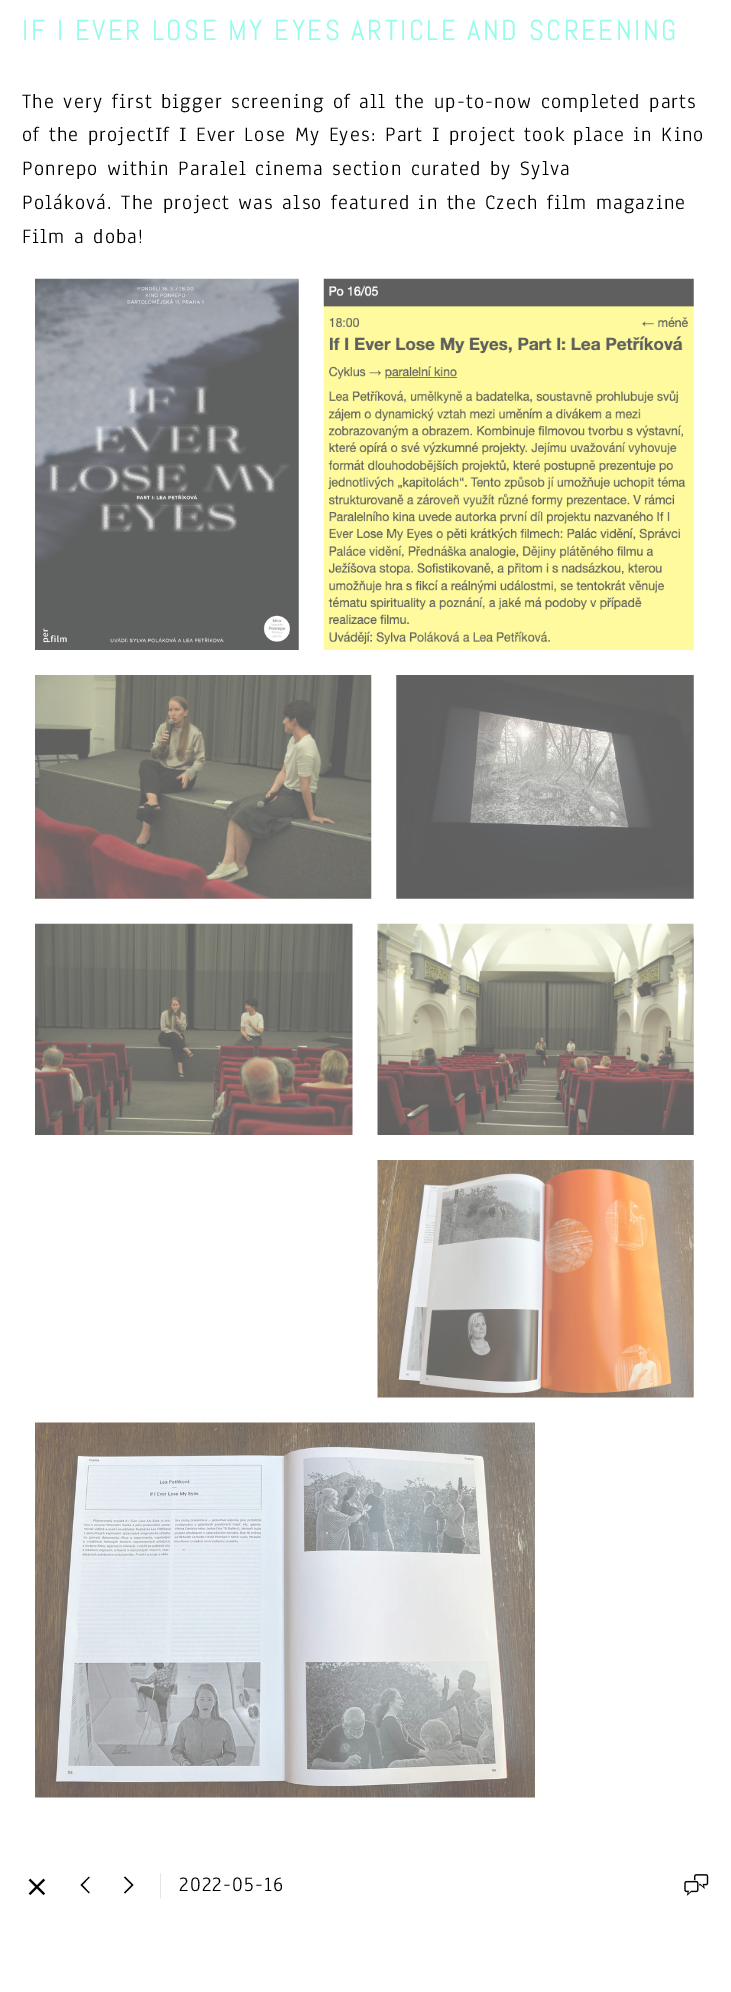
%!PS-Adobe-3.0
%%BoundingBox: 0 0 731 1992
%%LanguageLevel: 3
%%Pages: 1
%%EndComments
%%BeginProlog
/setink { dup -16 bitshift 255 div exch dup -8 bitshift 255 and 255 div exch 255 and 255 div setrgbcolor } def
/usefont { [ exch dup neg 0 0 3 -1 roll 0 0 ] selectfont } def
/drawimage { 5 dict begin { /h /w /y /x /name } { exch def } forall
  gsave x y translate w h scale
  w h 8 [w 0 0 h 0 0] name (r) file false 3 colorimage grestore end } def
%%EndProlog
%%BeginSetup
<< /PageSize [731 1992] >> setpagedevice
%%EndSetup
%%Page: 1 1
0 1992 translate 1 -1 scale
4 setmiterlimit
16#FFFFFF setink
0 0 731 1992 rectfill
/Abel-Regular 28.75 usefont
16#94FCEB setink
22 40 moveto 2.5 0 (IF I EVER LOSE MY EYES ARTICLE AND SCREENING) ashow
/Anaheim-Regular 21.25 usefont
16#000000 setink
22 108 moveto 1.25 0 (The very first bigger screening of all the up-to-now completed parts) ashow
22 141 moveto 1.25 0 (of the projectIf I Ever Lose My Eyes: Part I project took place in Kino) ashow
22 175 moveto 1.25 0 (Ponrepo within Paralel cinema section curated by Sylva) ashow
22 209 moveto 1.25 0 (Poláková. The project was also featured in the Czech film magazine) ashow
22 243 moveto 1.25 0 (Film a doba!) ashow
(img1.raw) 35 278 264 372 drawimage
(img2.raw) 323 278 371 372 drawimage
(img3.raw) 35 675 337 224 drawimage
(img4.raw) 396 675 298 224 drawimage
(img5.raw) 35 923 318 212 drawimage
(img6.raw) 377 923 317 212 drawimage
(img7.raw) 377 1160 317 238 drawimage
(img8.raw) 35 1422 500 376 drawimage
(img9.raw) 28 1878 18 18 drawimage
89 1893.5 moveto 80.5 1885 lineto 89 1876.5 lineto 89.5 1877.5 lineto 82.5 1885 lineto 89.5 1892.5 lineto closepath 133.5 1885 moveto 125 1893.5 lineto 124 1892.5 lineto 131.5 1885 lineto 124 1877.5 lineto 125 1876.5 lineto closepath fill
16#E6E6E6 setink
160 1873 1 26 rectfill
16#000000 setink
179 1891 moveto 1.25 0 (2022-05-16) ashow
(img10.raw) 684 1874 25 22 drawimage
showpage
%%EOF
